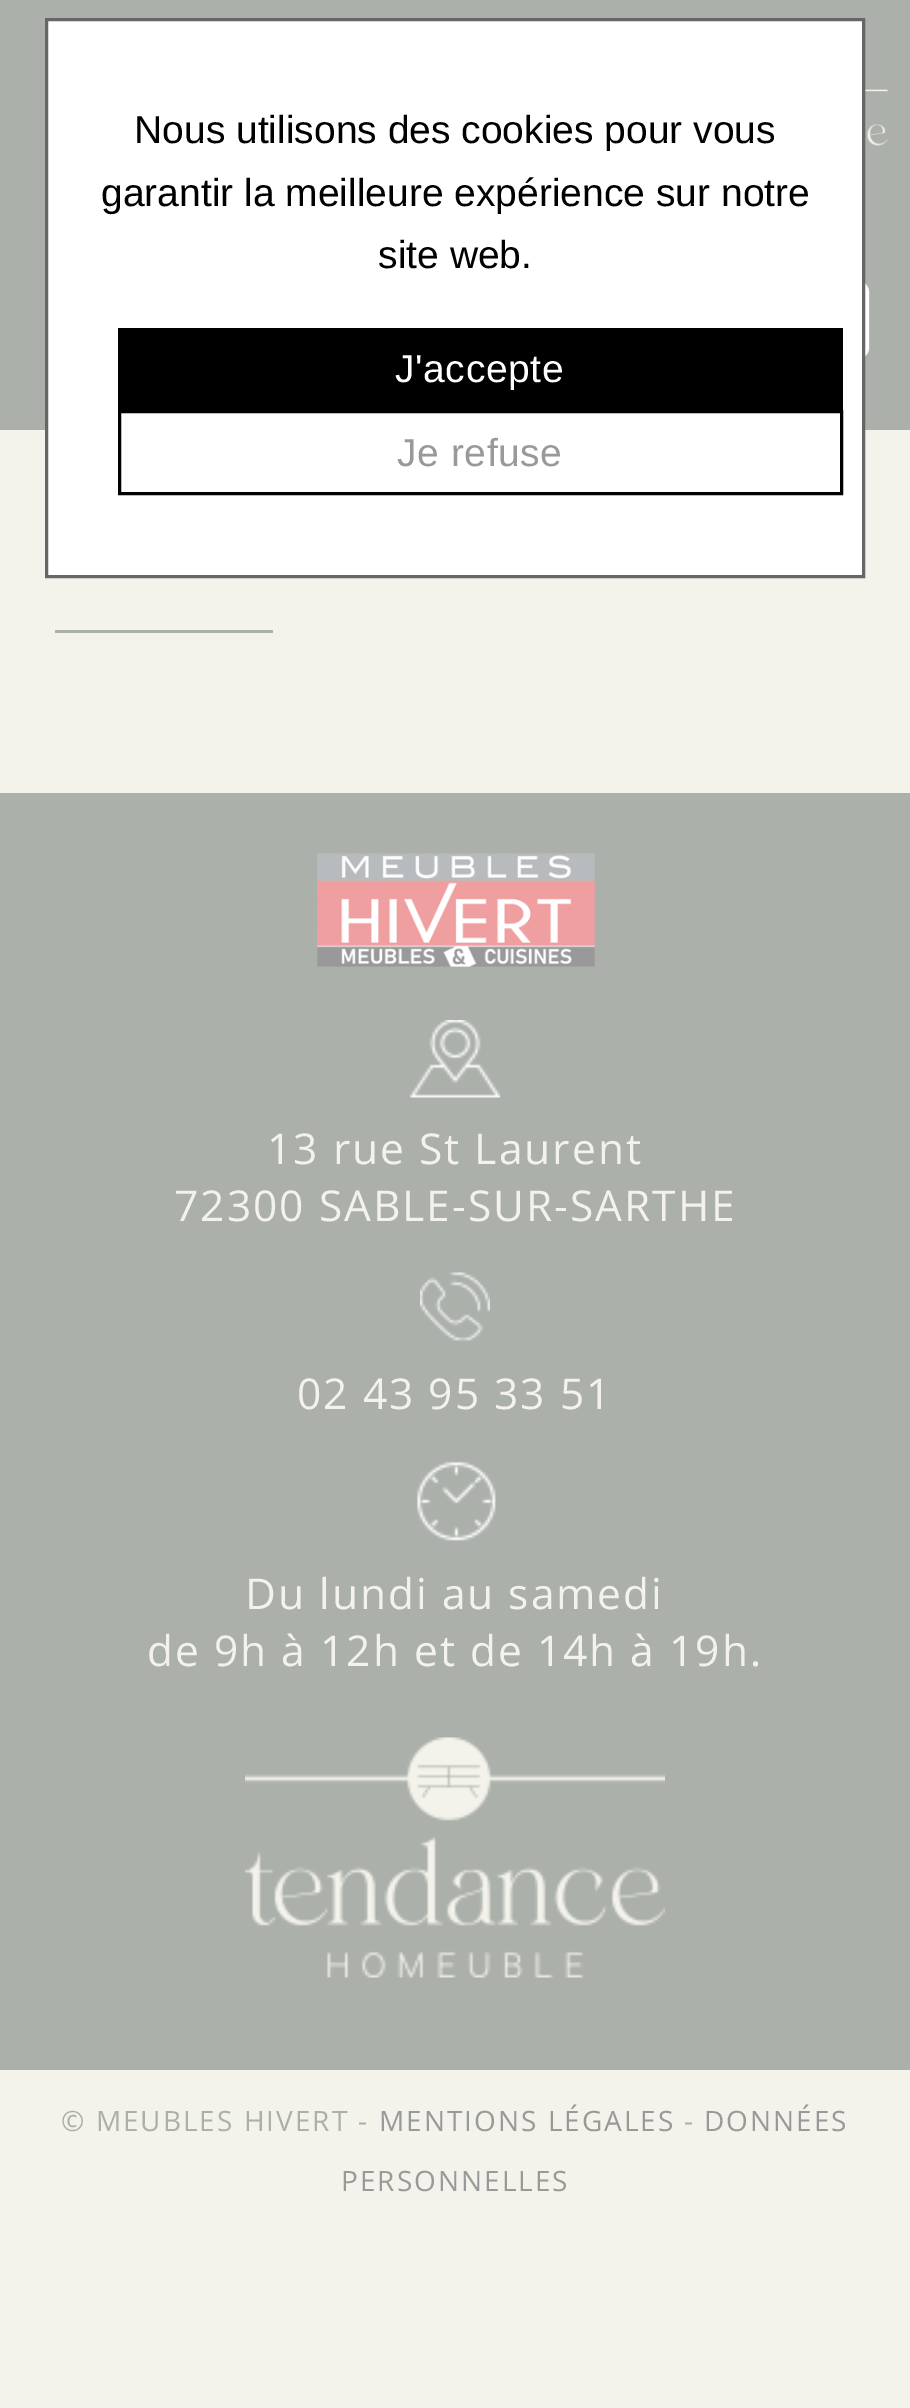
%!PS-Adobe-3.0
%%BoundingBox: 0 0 910 2408
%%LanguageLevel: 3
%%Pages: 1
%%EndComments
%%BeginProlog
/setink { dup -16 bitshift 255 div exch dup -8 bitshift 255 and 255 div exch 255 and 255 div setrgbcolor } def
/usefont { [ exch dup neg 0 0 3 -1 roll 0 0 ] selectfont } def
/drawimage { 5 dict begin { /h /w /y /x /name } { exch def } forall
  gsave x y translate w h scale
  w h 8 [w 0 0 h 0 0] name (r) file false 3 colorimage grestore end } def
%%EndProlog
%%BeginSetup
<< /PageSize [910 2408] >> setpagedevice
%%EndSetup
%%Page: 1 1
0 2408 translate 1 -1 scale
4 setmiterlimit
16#F4F3EB setink
0 0 910 2408 rectfill
16#ABB0AA setink
0 0 910 430 rectfill
(img1.raw) 865 89 23 57 drawimage
(img2.raw) 865 283 5 74 drawimage
16#FFFFFF setink
46.5 19.5 moveto 863.5 19.5 lineto 863.5 576.5 lineto 46.5 576.5 lineto closepath gsave fill grestore
16#666666 setink
3 setlinewidth
stroke
/LiberationSans-Regular 39 usefont
16#000000 setink
[
    [(Nous utilisons des cookies pour vous) 134 143]
    [(garantir la meilleure expérience sur notre) 101 206]
    [(site web.) 378 268]
] { aload pop moveto show } forall
118 328 725 82 rectfill
16#FFFFFF setink
395 382 moveto 0.6 0 (J'accepte) ashow
16#000000 setink
119.5 411.5 722 82 rectstroke
16#999999 setink
397 466 moveto 0.6 0 (Je refuse) ashow
16#ABB0AA setink
55 630 218 3 rectfill
0 793 910 1277 rectfill
(img3.raw) 317 853 278 114 drawimage
(img4.raw) 410 1020 90 78 drawimage
/OpenSans-Regular 42.5 usefont
16#F4F3EB setink
267 1164 moveto 2 0 (13 rue St Laurent) ashow
174 1221 moveto 2 0 (72300 SABLE-SUR-SARTHE) ashow
(img5.raw) 420 1272 70 71 drawimage
297 1409 moveto 2 0 (02 43 95 33 51) ashow
(img6.raw) 416 1461 80 80 drawimage
245 1609 moveto 2 0 (Du lundi au samedi) ashow
147 1666 moveto 2 0 (de 9h à 12h et de 14h à 19h.) ashow
(img7.raw) 245 1737 420 241 drawimage
/OpenSans-Regular 28 usefont
16#ABB0AA setink
61 2131 moveto 2 0 (© MEUBLES HIVERT -) ashow
16#999999 setink
379 2131 moveto 2 0 (MENTIONS LÉGALES) ashow
16#ABB0AA setink
684 2131 moveto 2 0 (-) ashow
16#999999 setink
704 2131 moveto 2 0 (DONNÉES) ashow
341 2191 moveto 2 0 (PERSONNELLES) ashow
showpage
%%EOF
